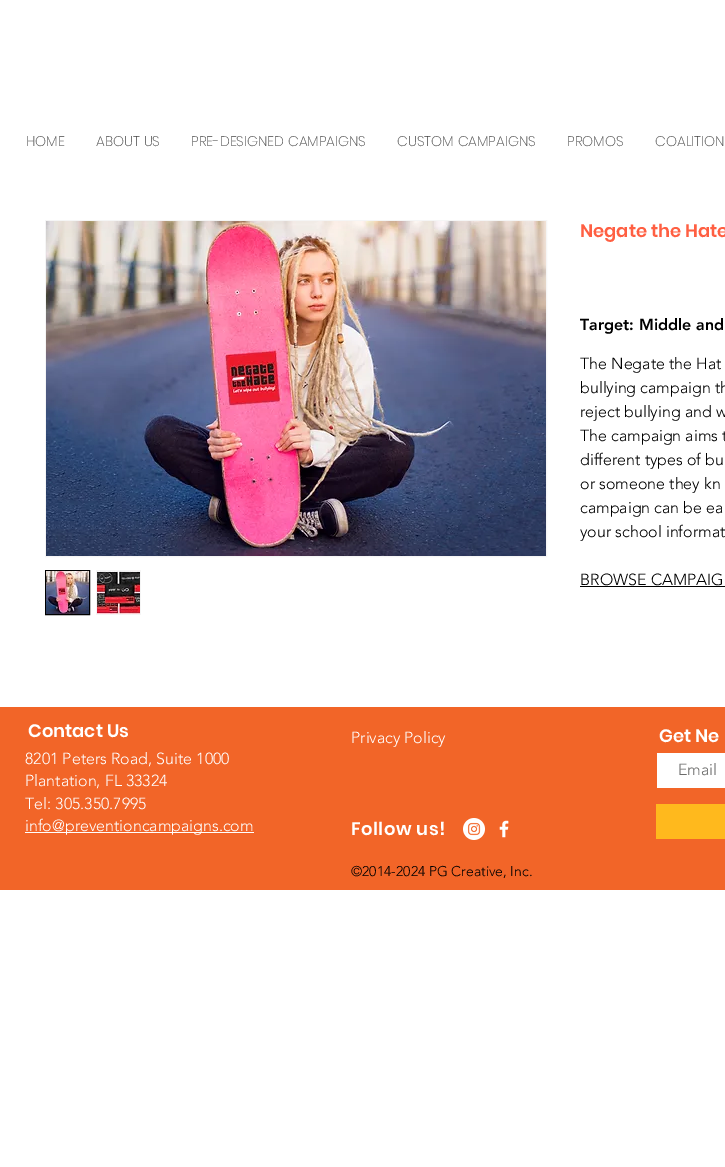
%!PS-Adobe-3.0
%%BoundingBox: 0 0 725 1167
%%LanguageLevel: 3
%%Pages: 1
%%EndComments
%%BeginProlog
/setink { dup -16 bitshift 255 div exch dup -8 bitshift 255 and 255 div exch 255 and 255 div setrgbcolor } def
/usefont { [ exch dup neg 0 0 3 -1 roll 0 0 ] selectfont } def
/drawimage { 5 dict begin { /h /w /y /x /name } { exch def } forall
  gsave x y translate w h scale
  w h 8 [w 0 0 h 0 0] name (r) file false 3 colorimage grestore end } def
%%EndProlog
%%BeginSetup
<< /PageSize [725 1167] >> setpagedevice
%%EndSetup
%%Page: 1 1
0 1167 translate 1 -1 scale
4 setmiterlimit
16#FFFFFF setink
0 0 725 1167 rectfill
/Poppins-ExtraLight 14 usefont
16#444444 setink
[
    [(HOME) 26 146]
    [(ABOUT US) 96 146]
    [(PRE-DESIGNED CAMPAIGNS) 191 146]
    [(CUSTOM CAMPAIGNS) 397 146]
    [(PROMOS) 567 146]
    [(COALITION) 655 146]
] { aload pop moveto show } forall
16#F5F5F5 setink
45.5 220.5 501 336 rectstroke
(img1.raw) 46 221 500 335 drawimage
16#000000 setink
45.5 570.5 44 44 rectstroke
(img2.raw) 46 571 43 43 drawimage
16#F5F5F5 setink
96 570 45 45 rectfill
(img3.raw) 97 571 43 43 drawimage
/Poppins-SemiBold 18 usefont
16#FF5F42 setink
580 237 moveto (Negate the Hate) show
/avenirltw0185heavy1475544-Black 16 usefont
16#000000 setink
580 330 moveto (Target: Middle and) show
/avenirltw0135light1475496-Light 16 usefont
[
    [(The Negate the Hat) 580 369]
    [(bullying campaign th) 580 393]
    [(reject bullying and w) 580 417]
    [(The campaign aims t) 580 441]
    [(different types of bu) 580 465]
    [(or someone they kn) 580 489]
    [(campaign can be ea) 580 513]
    [(your school informat) 580 537]
    [(BROWSE CAMPAIG) 580 585]
] { aload pop moveto show } forall
580 586 145 1 rectfill
16#F26528 setink
0 707 725 183 rectfill
/Poppins-SemiBold 18 usefont
16#FFFFFF setink
28 737 moveto (Contact Us) show
/avenirltw0135light1475496-Light 16 usefont
351 743 moveto (Privacy Policy) show
/Poppins-SemiBold 18 usefont
659 742 moveto (Get Ne) show
657 753 68 35 rectfill
/avenirltw0135light1475496-Light 16 usefont
16#6B6B6A setink
678 775 moveto (Email) show
16#FFB91D setink
656 804 69 35 rectfill
16#FFFFFF setink
[
    [(8201 Peters Road, Suite 1000) 25 764]
    [(Plantation, FL 33324) 25 786]
    [(Tel: 305.350.7995) 25 809]
] { aload pop moveto show } forall
25 832 229 1 rectfill
25 831 moveto (info@preventioncampaigns.com) show
/Poppins-SemiBold 18 usefont
351 835 moveto 0.5 0 (Follow us!) ashow
(img4.raw) 463 818 22 22 drawimage
(img5.raw) 499 820 10 18 drawimage
/avenirltw0135light1475496-Light 14 usefont
16#000000 setink
351 876 moveto (©2014-2024 PG Creative, Inc.) show
showpage
%%EOF
